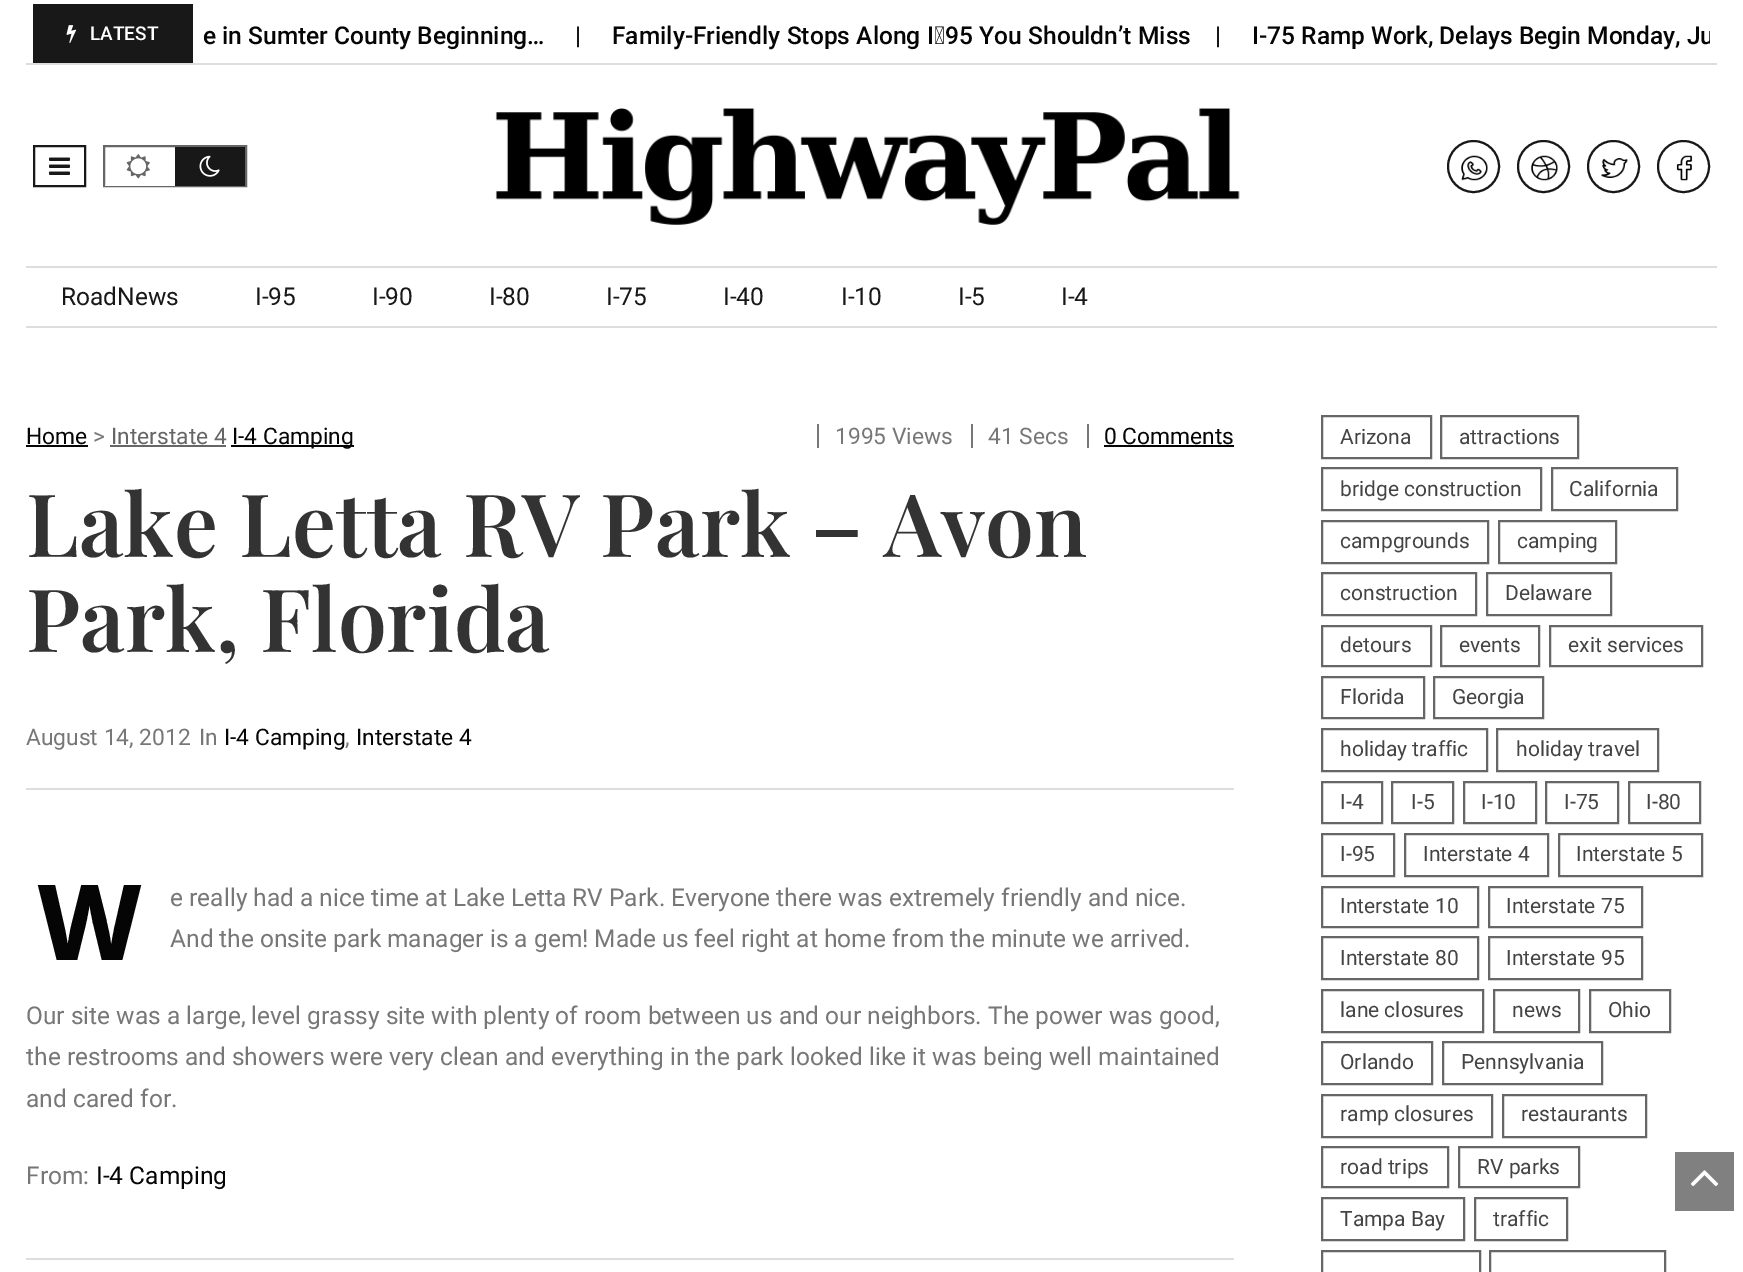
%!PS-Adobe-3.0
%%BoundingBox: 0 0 1743 1272
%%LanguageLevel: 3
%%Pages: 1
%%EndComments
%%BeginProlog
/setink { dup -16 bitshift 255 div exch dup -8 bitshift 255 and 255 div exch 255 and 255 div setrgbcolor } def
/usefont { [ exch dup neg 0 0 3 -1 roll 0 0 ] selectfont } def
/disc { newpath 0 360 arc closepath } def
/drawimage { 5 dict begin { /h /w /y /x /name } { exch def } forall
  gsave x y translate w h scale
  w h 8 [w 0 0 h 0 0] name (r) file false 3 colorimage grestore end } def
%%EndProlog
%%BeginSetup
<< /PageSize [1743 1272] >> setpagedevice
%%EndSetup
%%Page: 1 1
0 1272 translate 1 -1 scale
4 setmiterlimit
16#FFFFFF setink
0 0 1743 1272 rectfill
16#DDDDDD setink
26 63 1691 2 rectfill
16#181818 setink
33 4 160 59 rectfill
(img1.raw) 66 25 11 18 drawimage
/Roboto-Medium 19 usefont
16#FFFFFF setink
90 40 moveto (LATEST) show
/Roboto-Medium 24.5 usefont
16#050505 setink
203 44 moveto (e in Sumter County Beginning…) show
16#181818 setink
575 44 moveto (|) show
16#050505 setink
612 44 moveto 0.5 0 32 (Family-Friendly Stops Along I‑95 You Shouldn’t Miss) widthshow
16#181818 setink
1215 44 moveto (|) show
gsave
33 4 1677 59 rectclip
16#050505 setink
1252 44 moveto (I-75 Ramp Work, Delays Begin Monday, Ju) show
grestore
2 setlinewidth
34 146 51 40 rectstroke
(img2.raw) 49 157 21 18 drawimage
16#666666 setink
104 146 142 40 rectstroke
16#FFFFFF setink
105 185 70 1 rectfill
(img3.raw) 126 154 24 25 drawimage
16#181818 setink
175 147 70 39 rectfill
(img4.raw) 199 155 21 22 drawimage
(img5.raw) 495 108 745 117 drawimage
1473.5 166.5 25.5 disc stroke
(img6.raw) 1461 155 27 26 drawimage
1543.5 166.5 25.5 disc stroke
(img7.raw) 1531 155 27 26 drawimage
1613.5 166.5 25.5 disc stroke
(img8.raw) 1601 158 27 20 drawimage
1683.5 166.5 25.5 disc stroke
(img9.raw) 1676 155 17 26 drawimage
16#DDDDDD setink
26 266 1691 2 rectfill
26 326 1691 2 rectfill
/Roboto-Regular 24.5 usefont
16#181818 setink
[
    [(RoadNews) 61 305]
    [(I-95) 255 305]
    [(I-90) 372 305]
    [(I-80) 489 305]
    [(I-75) 606 305]
    [(I-40) 723 305]
    [(I-10) 841 305]
    [(I-5) 958 305]
    [(I-4) 1061 305]
] { aload pop moveto show } forall
16#DDDDDD setink
26 788 1208 2 rectfill
/Roboto-Regular 22.75 usefont
16#050505 setink
26 444 moveto (Home) show
26 445 62 2 rectfill
16#777777 setink
93 444 moveto (>) show
16#666666 setink
111 444 moveto (Interstate 4) show
110 445 116 2 rectfill
16#050505 setink
231 445 123 2 rectfill
232 444 moveto (I-4 Camping) show
16#777777 setink
817 424 2 24 rectfill
835 444 moveto (1995 Views) show
971 424 2 24 rectfill
988 444 moveto (41 Secs) show
1087 424 2 24 rectfill
16#050505 setink
1104 444 moveto (0 Comments) show
1104 445 130 2 rectfill
/PlayfairDisplay-SemiBold 87.5 usefont
16#333333 setink
26 557 moveto (Lake Letta RV Park – Avon) show
26 652 moveto (Park, Florida) show
/Roboto-Regular 22.75 usefont
16#777777 setink
26 745 moveto (August 14, 2012) show
199 745 moveto (In) show
16#050505 setink
224 745 moveto (I-4 Camping) show
16#777777 setink
345 745 moveto (,) show
16#050505 setink
356 745 moveto (Interstate 4) show
/NotoSans-ExtraBold 105 usefont
37 960 moveto (W) show
/Roboto-Regular 24.5 usefont
16#777777 setink
[
    [(e really had a nice time at Lake Letta RV Park. Everyone there was extremely friendly and nice.) 170 906]
    [(And the onsite park manager is a gem! Made us feel right at home from the minute we arrived.) 170 947]
    [(Our site was a large, level grassy site with plenty of room between us and our neighbors. The power was good,) 26 1024]
    [(the restrooms and showers were very clean and everything in the park looked like it was being well maintained) 26 1065]
    [(and cared for.) 26 1107]
    [(From:) 26 1184]
] { aload pop moveto show } forall
16#050505 setink
96 1184 moveto (I-4 Camping) show
16#DDDDDD setink
26 1258 1208 2 rectfill
16#666666 setink
1322 416 109 42 rectstroke
/Roboto-Regular 21 usefont
16#444444 setink
1340 444 moveto (Arizona) show
16#666666 setink
1441 416 137 42 rectstroke
16#444444 setink
1459 444 moveto (attractions) show
16#666666 setink
1322 468 219 42 rectstroke
16#444444 setink
1340 496 moveto (bridge construction) show
16#666666 setink
1552 468 125 42 rectstroke
16#444444 setink
1569 496 moveto (California) show
16#666666 setink
1322 521 166 42 rectstroke
16#444444 setink
1340 548 moveto (campgrounds) show
16#666666 setink
1499 521 117 42 rectstroke
16#444444 setink
1517 548 moveto (camping) show
16#666666 setink
1322 573 154 42 rectstroke
16#444444 setink
1340 600 moveto (construction) show
16#666666 setink
1487 573 124 42 rectstroke
16#444444 setink
1505 600 moveto (Delaware) show
16#666666 setink
1322 626 109 40 rectstroke
16#444444 setink
1340 652 moveto (detours) show
16#666666 setink
1441 626 98 40 rectstroke
16#444444 setink
1459 652 moveto (events) show
16#666666 setink
1550 626 152 40 rectstroke
16#444444 setink
1568 652 moveto (exit services) show
16#666666 setink
1322 677 102 41 rectstroke
16#444444 setink
1340 704 moveto (Florida) show
16#666666 setink
1434 677 109 41 rectstroke
16#444444 setink
1452 704 moveto (Georgia) show
16#666666 setink
1322 729 165 42 rectstroke
16#444444 setink
1340 756 moveto (holiday traffic) show
16#666666 setink
1497 729 161 42 rectstroke
16#444444 setink
1516 756 moveto (holiday travel) show
16#666666 setink
1322 782 60 41 rectstroke
16#444444 setink
1340 809 moveto (I-4) show
16#666666 setink
1392 782 61 41 rectstroke
16#444444 setink
1411 809 moveto (I-5) show
16#666666 setink
1464 782 72 41 rectstroke
16#444444 setink
1481 809 moveto (I-10) show
16#666666 setink
1546 782 72 41 rectstroke
16#444444 setink
1564 809 moveto (I-75) show
16#666666 setink
1629 782 71 41 rectstroke
16#444444 setink
1646 809 moveto (I-80) show
16#666666 setink
1322 834 72 42 rectstroke
16#444444 setink
1340 861 moveto (I-95) show
16#666666 setink
1405 834 143 42 rectstroke
16#444444 setink
1423 861 moveto (Interstate 4) show
16#666666 setink
1559 834 143 42 rectstroke
16#444444 setink
1576 861 moveto (Interstate 5) show
16#666666 setink
1322 887 156 40 rectstroke
16#444444 setink
1340 913 moveto (Interstate 10) show
16#666666 setink
1489 887 153 40 rectstroke
16#444444 setink
1506 913 moveto (Interstate 75) show
16#666666 setink
1322 937 156 42 rectstroke
16#444444 setink
1340 965 moveto (Interstate 80) show
16#666666 setink
1489 937 153 42 rectstroke
16#444444 setink
1506 965 moveto (Interstate 95) show
16#666666 setink
1322 990 161 42 rectstroke
16#444444 setink
1340 1017 moveto (lane closures) show
16#666666 setink
1494 990 85 42 rectstroke
16#444444 setink
1512 1017 moveto (news) show
16#666666 setink
1590 990 80 42 rectstroke
16#444444 setink
1608 1017 moveto (Ohio) show
16#666666 setink
1322 1042 110 42 rectstroke
16#444444 setink
1340 1069 moveto (Orlando) show
16#666666 setink
1443 1042 159 42 rectstroke
16#444444 setink
1461 1069 moveto (Pennsylvania) show
16#666666 setink
1322 1095 170 42 rectstroke
16#444444 setink
1340 1121 moveto (ramp closures) show
16#666666 setink
1503 1095 143 42 rectstroke
16#444444 setink
1521 1121 moveto (restaurants) show
16#666666 setink
1322 1147 126 40 rectstroke
16#444444 setink
1340 1174 moveto (road trips) show
16#666666 setink
1459 1147 120 40 rectstroke
16#444444 setink
1477 1174 moveto (RV parks) show
16#666666 setink
1322 1198 142 42 rectstroke
16#444444 setink
1340 1226 moveto (Tampa Bay) show
16#666666 setink
1475 1198 92 42 rectstroke
16#444444 setink
1493 1226 moveto (traffic) show
16#666666 setink
1322 1251 158 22 rectstroke
1490 1251 175 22 rectstroke
16#808080 setink
1675 1152 59 59 rectfill
(img10.raw) 1690 1170 29 17 drawimage
showpage
%%EOF
